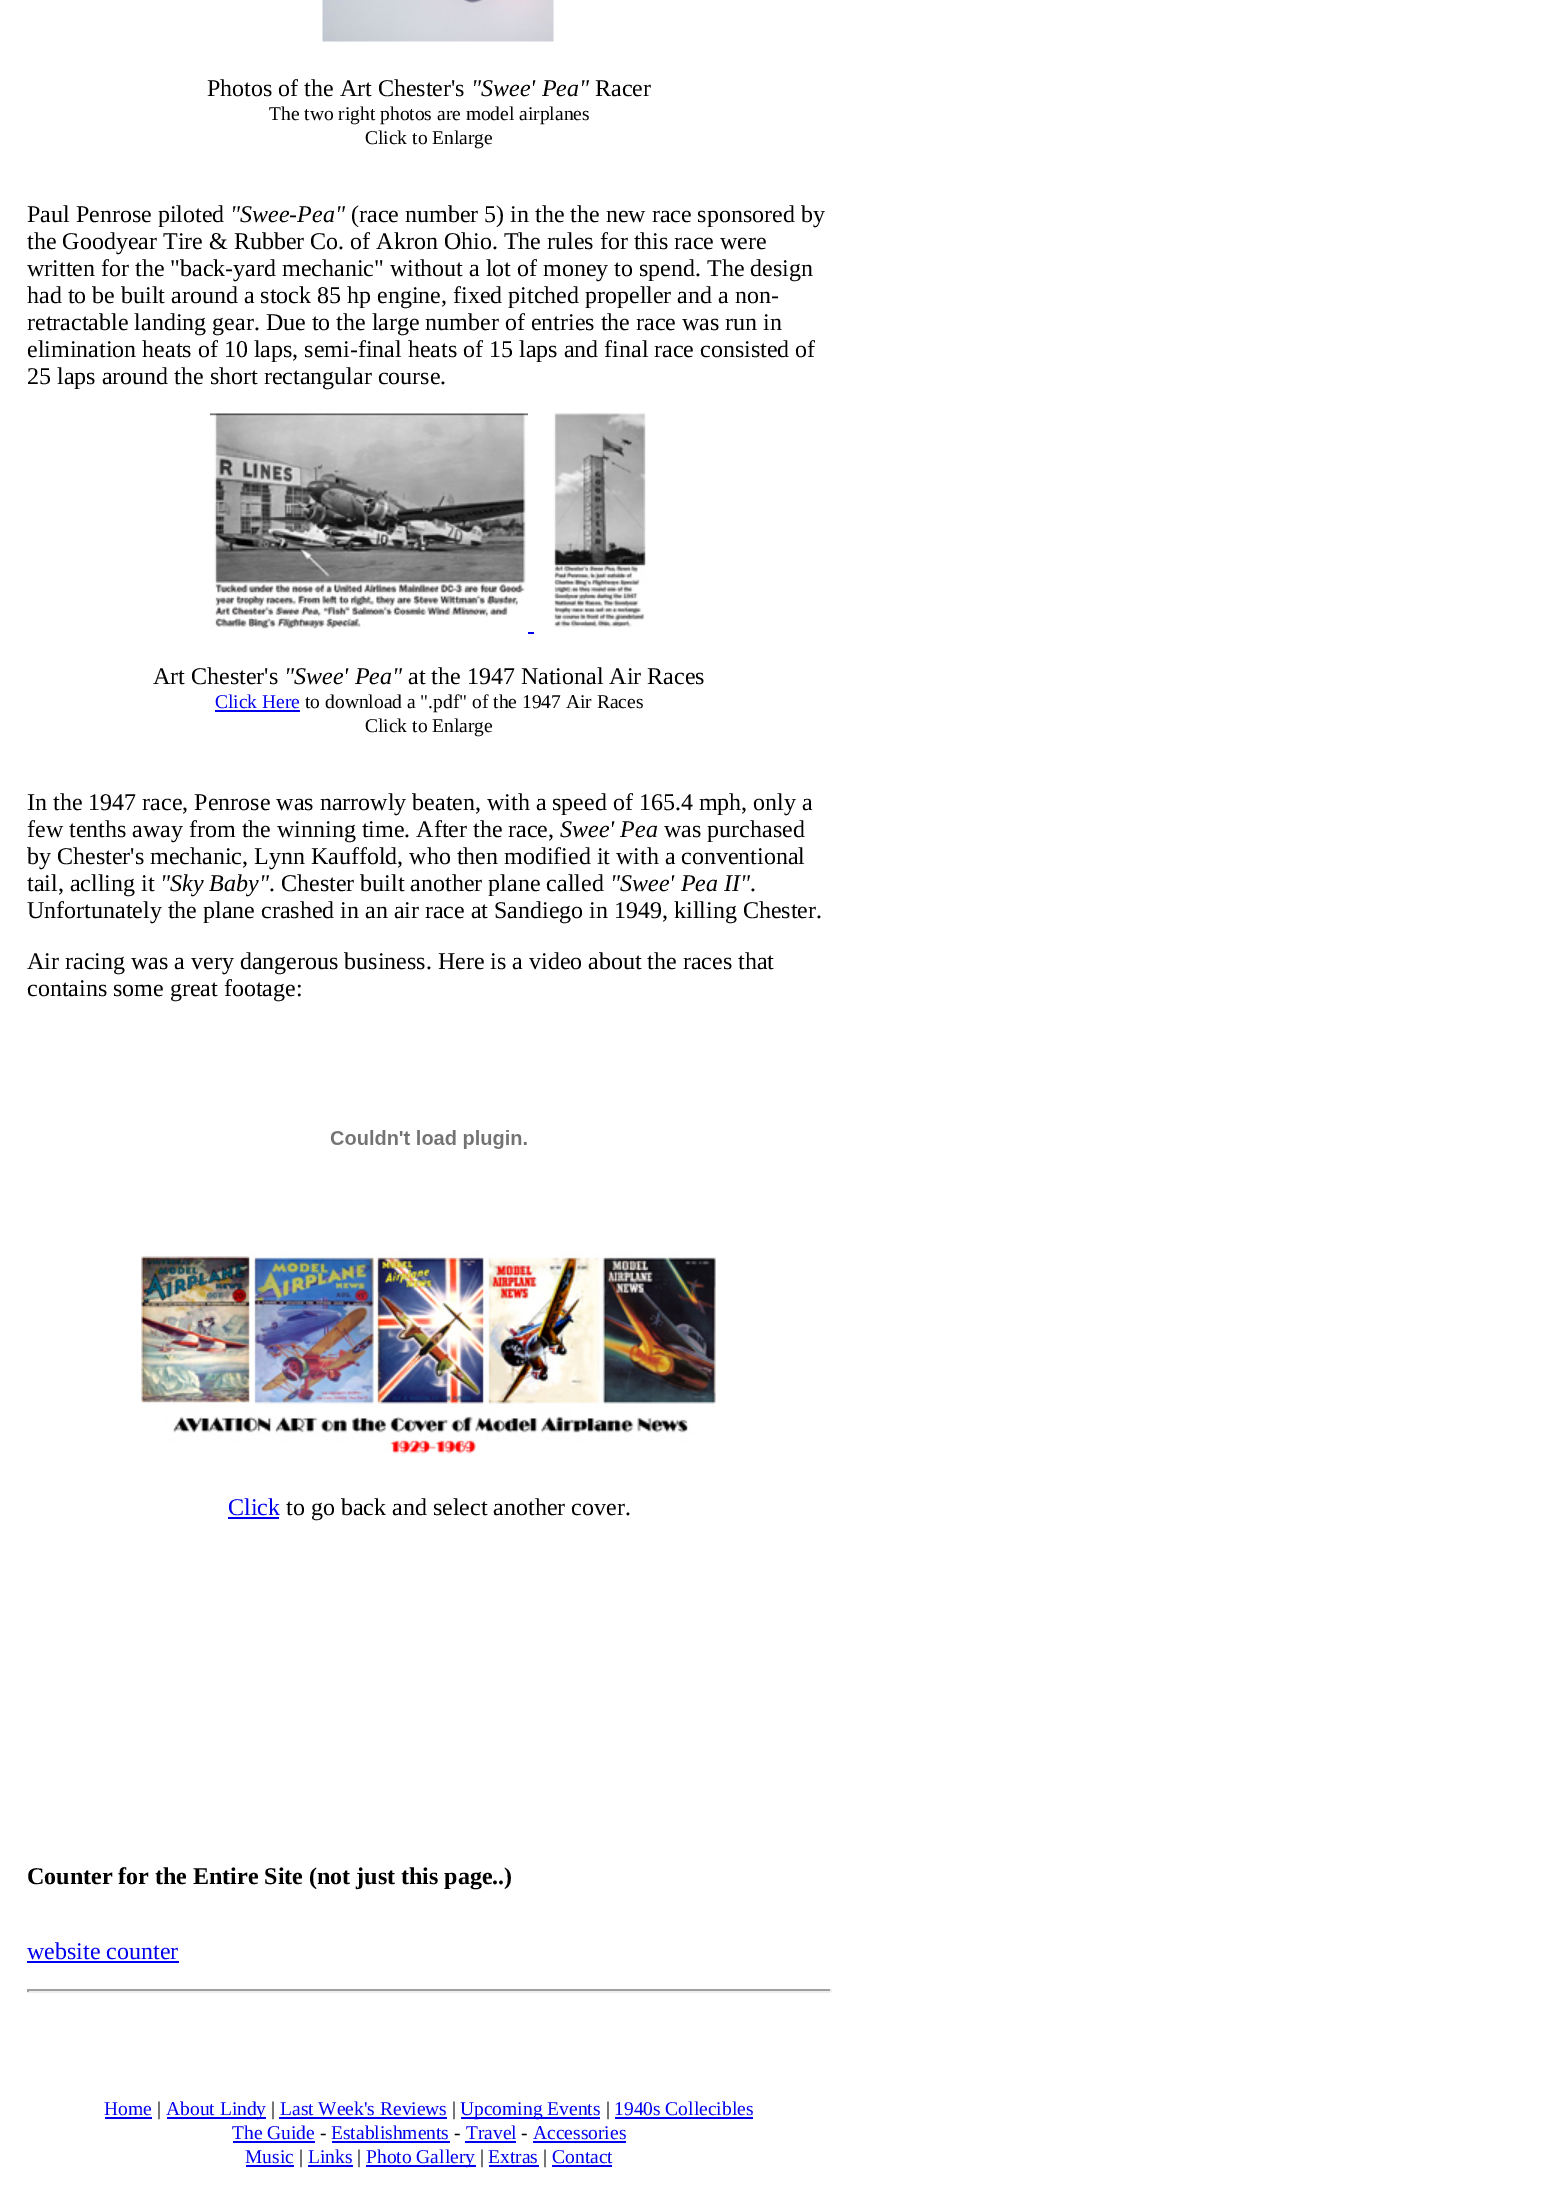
%!PS-Adobe-3.0
%%BoundingBox: 0 0 1562 2195
%%LanguageLevel: 3
%%Pages: 1
%%EndComments
%%BeginProlog
/setink { dup -16 bitshift 255 div exch dup -8 bitshift 255 and 255 div exch 255 and 255 div setrgbcolor } def
/usefont { [ exch dup neg 0 0 3 -1 roll 0 0 ] selectfont } def
/drawimage { 5 dict begin { /h /w /y /x /name } { exch def } forall
  gsave x y translate w h scale
  w h 8 [w 0 0 h 0 0] name (r) file false 3 colorimage grestore end } def
%%EndProlog
%%BeginSetup
<< /PageSize [1562 2195] >> setpagedevice
%%EndSetup
%%Page: 1 1
0 2195 translate 1 -1 scale
4 setmiterlimit
16#FFFFFF setink
0 0 1562 2195 rectfill
(img1.raw) 322 0 232 42 drawimage
/LiberationSerif-Regular 24 usefont
16#000000 setink
207 96 moveto (Photos of the Art Chester's) show
/LiberationSerif-Italic 24 usefont
471 96 moveto ("Swee' Pea") show
/LiberationSerif-Regular 24 usefont
595 96 moveto (Racer) show
/LiberationSerif-Regular 19.5 usefont
269 120 moveto (The two right photos are model airplanes) show
365 144 moveto (Click to Enlarge) show
/LiberationSerif-Regular 24 usefont
27 222 moveto (Paul Penrose piloted) show
/LiberationSerif-Italic 24 usefont
230 222 moveto ("Swee-Pea") show
/LiberationSerif-Regular 24 usefont
[
    [(\(race number 5\) in the the new race sponsored by) 351 222]
    [(the Goodyear Tire & Rubber Co. of Akron Ohio. The rules for this race were) 27 249]
    [(written for the "back-yard mechanic" without a lot of money to spend. The design) 27 276]
    [(had to be built around a stock 85 hp engine, fixed pitched propeller and a non-) 27 303]
    [(retractable landing gear. Due to the large number of entries the race was run in) 27 330]
    [(elimination heats of 10 laps, semi-final heats of 15 laps and final race consisted of) 27 357]
    [(25 laps around the short rectangular course.) 27 384]
] { aload pop moveto show } forall
(img2.raw) 210 413 318 216 drawimage
(img3.raw) 553 413 93 214 drawimage
16#0000EE setink
528 632 6 2 rectfill
16#000000 setink
153 684 moveto (Art Chester's) show
/LiberationSerif-Italic 24 usefont
284 684 moveto ("Swee' Pea") show
/LiberationSerif-Regular 24 usefont
408 684 moveto (at the 1947 National Air Races) show
/LiberationSerif-Regular 19.5 usefont
16#0000EE setink
215 708 moveto (Click Here) show
215 710 85 2 rectfill
16#000000 setink
305 708 moveto (to download a ".pdf" of the 1947 Air Races) show
365 732 moveto (Click to Enlarge) show
/LiberationSerif-Regular 24 usefont
27 810 moveto (In the 1947 race, Penrose was narrowly beaten, with a speed of 165.4 mph, only a) show
27 837 moveto (few tenths away from the winning time. After the race,) show
/LiberationSerif-Italic 24 usefont
560 837 moveto (Swee' Pea) show
/LiberationSerif-Regular 24 usefont
[
    [(was purchased) 664 837]
    [(by Chester's mechanic, Lynn Kauffold, who then modified it with a conventional) 27 864]
    [(tail, aclling it) 27 891]
] { aload pop moveto show } forall
/LiberationSerif-Italic 24 usefont
160 891 moveto ("Sky Baby") show
/LiberationSerif-Regular 24 usefont
269 891 moveto (. Chester built another plane called) show
/LiberationSerif-Italic 24 usefont
610 891 moveto ("Swee' Pea II") show
/LiberationSerif-Regular 24 usefont
[
    [(.) 750 891]
    [(Unfortunately the plane crashed in an air race at Sandiego in 1949, killing Chester.) 27 918]
    [(Air racing was a very dangerous business. Here is a video about the races that) 27 969]
    [(contains some great footage:) 27 996]
] { aload pop moveto show } forall
(img4.raw) 330 1130 197 19 drawimage
(img5.raw) 141 1251 575 203 drawimage
16#0000EE setink
228 1515 moveto (Click) show
228 1517 51 2 rectfill
16#000000 setink
286 1515 moveto (to go back and select another cover.) show
/LiberationSerif-Bold 24 usefont
27 1884 moveto (Counter for the Entire Site \(not just this page..\)) show
/LiberationSerif-Regular 24 usefont
16#0000EE setink
27 1959 moveto (website counter) show
[
    [27 1961 152 2 16#0000EE]
    [27 1989 804 2 16#9F9F9F]
    [830 1989 2 3 16#EEEEEE]
    [27 1991 804 2 16#EEEEEE]
    [27 1989 2 3 16#9F9F9F]
] { aload pop setink rectfill } forall
/LiberationSerif-Regular 19.5 usefont
16#0000EE setink
104 2115 moveto (Home) show
105 2117 47 2 rectfill
16#000000 setink
157 2115 moveto (|) show
16#0000EE setink
167 2117 99 2 rectfill
166 2115 moveto (About Lindy) show
16#000000 setink
271 2115 moveto (|) show
16#0000EE setink
280 2115 moveto (Last Week's Reviews) show
279 2117 168 2 rectfill
16#000000 setink
452 2115 moveto (|) show
16#0000EE setink
461 2117 139 2 rectfill
460 2115 moveto (Upcoming Events) show
16#000000 setink
606 2115 moveto (|) show
16#0000EE setink
614 2115 moveto (1940s Collecibles) show
615 2117 138 2 rectfill
232 2139 moveto (The Guide) show
233 2141 82 2 rectfill
16#000000 setink
320 2139 moveto (-) show
16#0000EE setink
331 2139 moveto (Establishments) show
332 2141 118 2 rectfill
16#000000 setink
454 2139 moveto (-) show
16#0000EE setink
466 2139 moveto (Travel) show
465 2141 51 2 rectfill
16#000000 setink
521 2139 moveto (-) show
16#0000EE setink
533 2139 moveto (Accessories) show
533 2141 93 2 rectfill
245 2163 moveto (Music) show
246 2165 48 2 rectfill
16#000000 setink
299 2163 moveto (|) show
16#0000EE setink
308 2163 moveto (Links) show
308 2165 45 2 rectfill
16#000000 setink
357 2163 moveto (|) show
16#0000EE setink
366 2165 110 2 rectfill
366 2163 moveto (Photo Gallery) show
16#000000 setink
480 2163 moveto (|) show
16#0000EE setink
488 2163 moveto (Extras) show
489 2165 50 2 rectfill
16#000000 setink
543 2163 moveto (|) show
16#0000EE setink
552 2163 moveto (Contact) show
552 2165 60 2 rectfill
showpage
%%EOF
